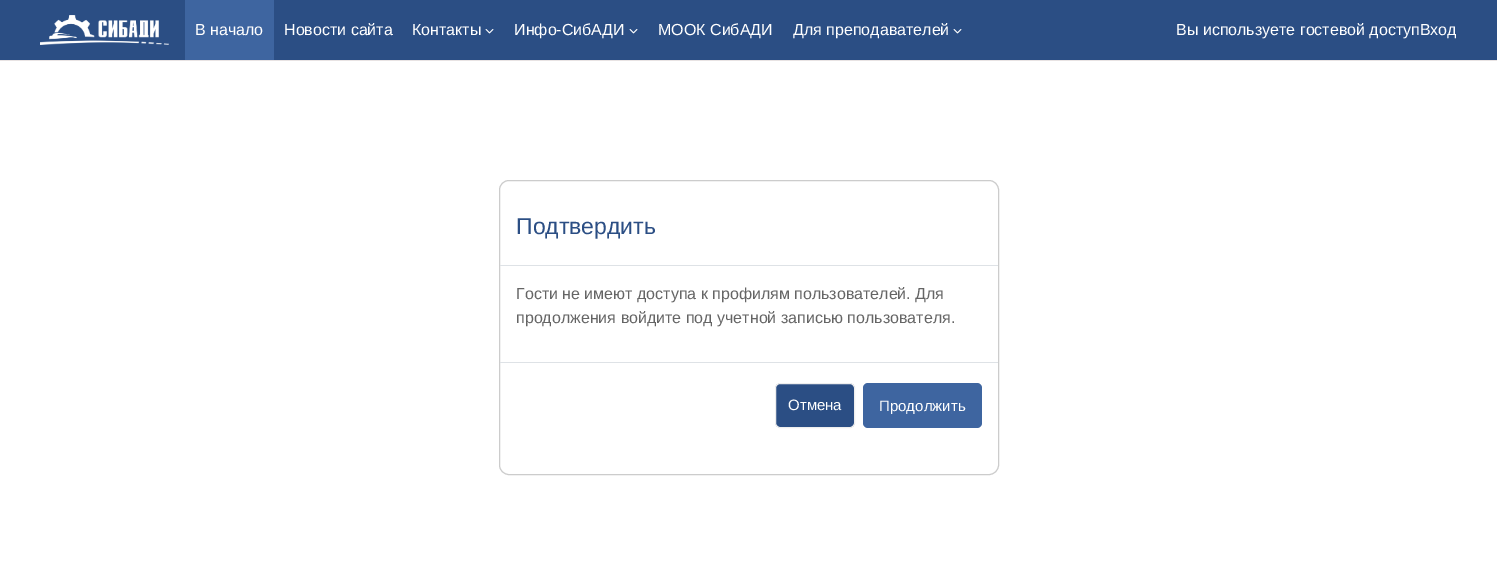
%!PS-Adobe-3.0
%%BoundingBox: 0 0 1497 576
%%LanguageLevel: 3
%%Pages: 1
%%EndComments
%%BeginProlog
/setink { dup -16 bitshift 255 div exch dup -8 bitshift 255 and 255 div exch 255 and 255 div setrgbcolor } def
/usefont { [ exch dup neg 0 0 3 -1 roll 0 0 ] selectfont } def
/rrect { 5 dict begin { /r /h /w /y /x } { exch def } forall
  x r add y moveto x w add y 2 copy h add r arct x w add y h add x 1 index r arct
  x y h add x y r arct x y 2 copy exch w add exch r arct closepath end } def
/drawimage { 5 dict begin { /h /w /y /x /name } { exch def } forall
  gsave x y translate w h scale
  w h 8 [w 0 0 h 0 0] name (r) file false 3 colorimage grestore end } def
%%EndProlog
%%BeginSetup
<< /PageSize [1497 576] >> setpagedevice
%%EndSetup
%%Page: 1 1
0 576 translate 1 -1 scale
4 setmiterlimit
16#FFFFFF setink
0 0 1497 576 rectfill
16#2B4E84 setink
0 0 1497 60 rectfill
16#E8E3E3 setink
0 60 1497 1 rectfill
(img1.raw) 40 15 129 30 drawimage
16#3E65A0 setink
185 0 89 60 rectfill
/LiberationSans-Regular 16 usefont
16#FFFFFF setink
[
    [(В начало) 195 35]
    [(Новости сайта) 284 35]
    [(Контакты) 412 35]
] { aload pop moveto show } forall
(img2.raw) 485 29 9 5 drawimage
514 35 moveto (Инфо-СибАДИ) show
(img2.raw) 629 29 9 5 drawimage
658 35 moveto (МООК СибАДИ) show
793 35 moveto (Для преподавателей) show
(img2.raw) 953 29 9 5 drawimage
1176 35 moveto (Вы используете гостевой доступВход) show
16#CCCCCC setink
499.5 180.5 499 294 9.5 rrect stroke
16#DEE2E6 setink
500 265 498 1 rectfill
/LiberationSans-Regular 23 usefont
16#2B4E84 setink
516 234 moveto (Подтвердить) show
/LiberationSans-Regular 16 usefont
16#656565 setink
516 299 moveto (Гости не имеют доступа к профилям пользователей. Для) show
516 323 moveto (продолжения войдите под учетной записью пользователя.) show
16#DEE2E6 setink
500 362 498 1 rectfill
16#2B4E84 setink
775.5 383.5 79 44 4.5 rrect gsave fill grestore
16#EEEEEE setink
stroke
/LiberationSans-Regular 15 usefont
16#FFFFFF setink
788 410 moveto (Отмена) show
16#3E65A0 setink
863 383 119 45 5 rrect fill
16#FFFFFF setink
879 411 moveto (Продолжить) show
showpage
%%EOF
